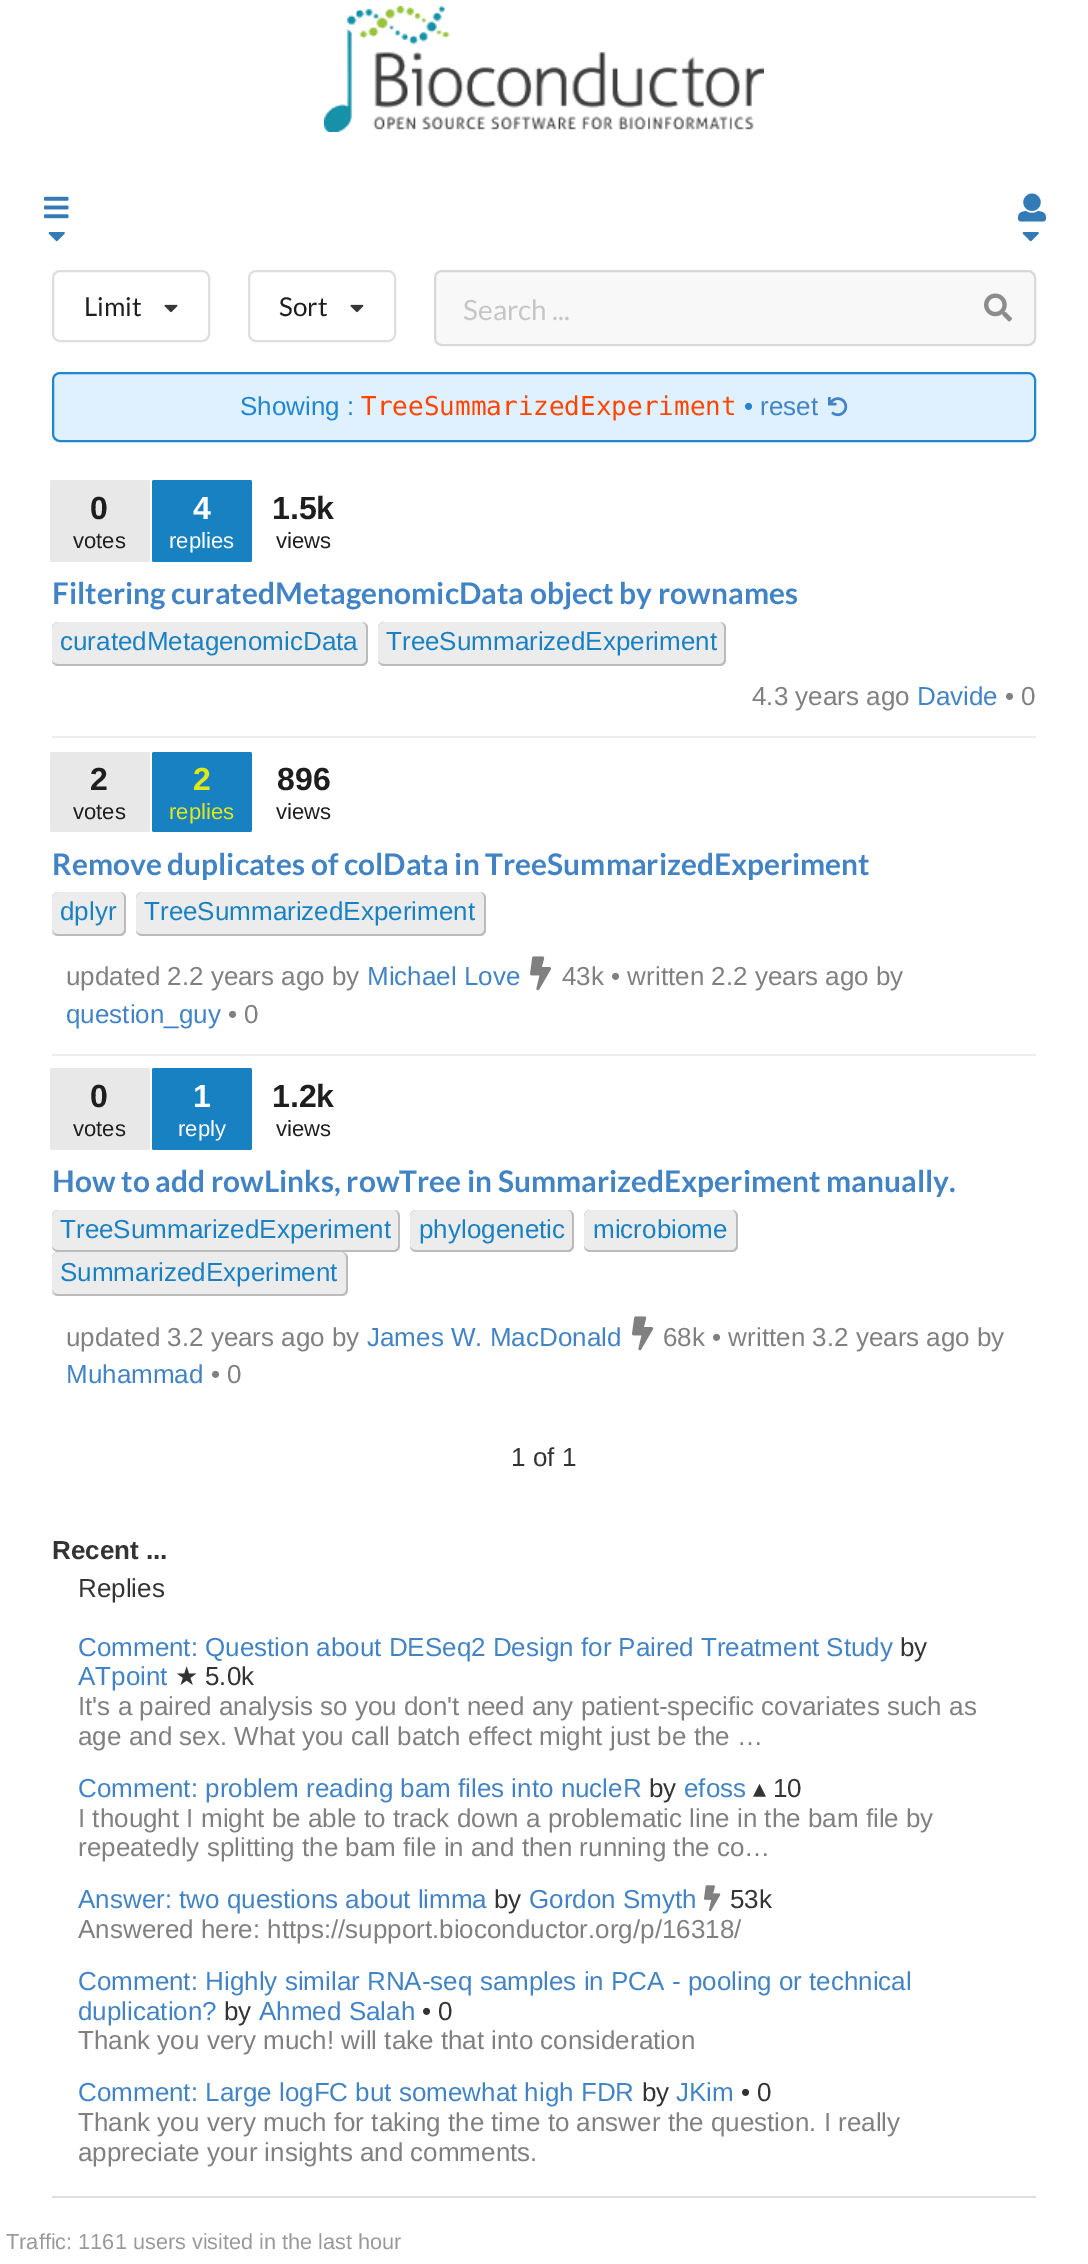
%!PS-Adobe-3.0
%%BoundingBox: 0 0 1088 2264
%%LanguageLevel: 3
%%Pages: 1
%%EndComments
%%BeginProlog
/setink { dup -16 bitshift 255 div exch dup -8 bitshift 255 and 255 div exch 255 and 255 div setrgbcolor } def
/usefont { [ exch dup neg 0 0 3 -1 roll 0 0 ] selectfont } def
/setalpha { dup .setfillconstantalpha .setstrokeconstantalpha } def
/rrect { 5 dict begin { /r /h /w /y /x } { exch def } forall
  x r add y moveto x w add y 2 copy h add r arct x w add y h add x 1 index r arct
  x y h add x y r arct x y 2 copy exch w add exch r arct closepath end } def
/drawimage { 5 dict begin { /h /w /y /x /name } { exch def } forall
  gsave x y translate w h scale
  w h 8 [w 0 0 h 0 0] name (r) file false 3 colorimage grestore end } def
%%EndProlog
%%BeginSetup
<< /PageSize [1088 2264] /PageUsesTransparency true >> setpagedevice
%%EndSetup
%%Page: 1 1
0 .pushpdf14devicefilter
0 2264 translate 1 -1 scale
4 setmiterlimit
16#FFFFFF setink
0 0 1088 2264 rectfill
(img1.raw) 324 6 440 126 drawimage
(img2.raw) 44 196 25 23 drawimage
(img3.raw) 48 232 17 10 drawimage
(img4.raw) 1018 193 28 29 drawimage
(img3.raw) 1022 232 17 10 drawimage
16#DEDEDE setink
2 setlinewidth
53 271 156 70 7 rrect stroke
/Lato-Regular 26 usefont
16#1E1E1E setink
84 316 moveto (Limit) show
(img5.raw) 164 304 14 9 drawimage
16#DEDEDE setink
249 271 146 70 7 rrect stroke
16#1E1E1E setink
279 316 moveto (Sort) show
(img5.raw) 350 304 14 9 drawimage
16#F8F8F9 setink
434 270 602 76 8 rrect fill
0.15 setalpha
16#222426 setink
435 271 600 74 7 rrect stroke
/Lato-Regular 28 usefont
1 setalpha
16#C6C6C7 setink
463 320 moveto (Search ...) show
(img6.raw) 984 293 28 29 drawimage
16#DFF0FF setink
53 373 982 68 7 rrect gsave fill grestore
16#2185D0 setink
stroke
/LiberationSans-Regular 26 usefont
240 415 moveto (Showing :) show
/DejaVuSansMono-Regular 26 usefont
16#FF4500 setink
361 415 moveto (TreeSummarizedExperiment) show
/LiberationSans-Regular 26 usefont
16#2185D0 setink
744 415 moveto (•) show
16#4183C4 setink
760 415 moveto (reset) show
(img7.raw) 828 396 20 21 drawimage
16#E8E8E8 setink
50 480 100 82 2 rrect fill
/LiberationSans-Bold 32 usefont
16#1E1E1E setink
90 519 moveto (0) show
/LiberationSans-Regular 22 usefont
73 548 moveto (votes) show
16#1881C2 setink
152 480 100 82 2 rrect fill
/LiberationSans-Bold 32 usefont
16#FFFFFF setink
193 519 moveto (4) show
/LiberationSans-Regular 22 usefont
169 548 moveto (replies) show
/LiberationSans-Bold 32 usefont
16#1E1E1E setink
272 519 moveto (1.5k) show
/LiberationSans-Regular 22 usefont
276 548 moveto (views) show
/Lato-Bold 29.9 usefont
16#4183C4 setink
52 604 moveto (Filtering curatedMetagenomicData object by rownames) show
16#ECECEC setink
52 622 316 44 6 rrect fill
16#BBBBBB setink
58 622 moveto 362 622 lineto 365 622 368 625 368 628 curveto 368 660 lineto 368 663 365 666 362 666 curveto 58 666 lineto 55 666 52 663 52 660 curveto 52 628 lineto 52 625 55 622 58 622 curveto closepath 58 622 moveto 362 622 lineto 364 622 366 625 366 628 curveto 366 660 lineto 366 662 364 664 362 664 curveto 58 664 lineto 55 664 52 662 52 660 curveto 52 628 lineto 52 625 55 622 58 622 curveto closepath eofill
/LiberationSans-Regular 26 usefont
16#1881C2 setink
60 650 moveto (curatedMetagenomicData) show
16#ECECEC setink
378 622 348 44 6 rrect fill
16#BBBBBB setink
384 622 moveto 720 622 lineto 723 622 726 625 726 628 curveto 726 660 lineto 726 663 723 666 720 666 curveto 384 666 lineto 381 666 378 663 378 660 curveto 378 628 lineto 378 625 381 622 384 622 curveto closepath 384 622 moveto 720 622 lineto 722 622 724 625 724 628 curveto 724 660 lineto 724 662 722 664 720 664 curveto 384 664 lineto 381 664 378 662 378 660 curveto 378 628 lineto 378 625 381 622 384 622 curveto closepath eofill
16#1881C2 setink
386 650 moveto (TreeSummarizedExperiment) show
16#808080 setink
752 705 moveto (4.3 years ago) show
16#4183C4 setink
917 705 moveto (Davide) show
16#808080 setink
1005 705 moveto (• 0) show
16#ECECEC setink
52 736 984 2 rectfill
16#E8E8E8 setink
50 752 100 80 2 rrect fill
/LiberationSans-Bold 32 usefont
16#1E1E1E setink
90 790 moveto (2) show
/LiberationSans-Regular 22 usefont
73 819 moveto (votes) show
16#1881C2 setink
152 752 100 80 2 rrect fill
/LiberationSans-Bold 32 usefont
16#E1E818 setink
193 790 moveto (2) show
/LiberationSans-Regular 22 usefont
169 819 moveto (replies) show
/LiberationSans-Bold 32 usefont
16#1E1E1E setink
277 790 moveto (896) show
/LiberationSans-Regular 22 usefont
276 819 moveto (views) show
/Lato-Bold 29.9 usefont
16#4183C4 setink
52 875 moveto (Remove duplicates of colData in TreeSummarizedExperiment) show
16#ECECEC setink
52 892 74 44 6 rrect fill
16#BBBBBB setink
58 892 moveto 120 892 lineto 123 892 126 895 126 898 curveto 126 930 lineto 126 933 123 936 120 936 curveto 58 936 lineto 55 936 52 933 52 930 curveto 52 898 lineto 52 895 55 892 58 892 curveto closepath 58 892 moveto 120 892 lineto 122 892 124 895 124 898 curveto 124 930 lineto 124 932 122 934 120 934 curveto 58 934 lineto 55 934 52 932 52 930 curveto 52 898 lineto 52 895 55 892 58 892 curveto closepath eofill
/LiberationSans-Regular 26 usefont
16#1881C2 setink
60 920 moveto (dplyr) show
16#ECECEC setink
136 892 350 44 6 rrect fill
16#BBBBBB setink
142 892 moveto 480 892 lineto 483 892 486 895 486 898 curveto 486 930 lineto 486 933 483 936 480 936 curveto 142 936 lineto 139 936 136 933 136 930 curveto 136 898 lineto 136 895 139 892 142 892 curveto closepath 142 892 moveto 480 892 lineto 482 892 484 895 484 898 curveto 484 930 lineto 484 932 482 934 480 934 curveto 142 934 lineto 139 934 136 932 136 930 curveto 136 898 lineto 136 895 139 892 142 892 curveto closepath eofill
16#1881C2 setink
144 920 moveto (TreeSummarizedExperiment) show
16#808080 setink
66 985 moveto (updated 2.2 years ago by) show
16#4183C4 setink
367 985 moveto (Michael Love) show
(img8.raw) 530 956 22 35 drawimage
16#808080 setink
562 985 moveto (43k • written 2.2 years ago by) show
16#4183C4 setink
66 1023 moveto (question_guy) show
16#808080 setink
228 1023 moveto (• 0) show
16#ECECEC setink
52 1054 984 2 rectfill
16#E8E8E8 setink
50 1068 100 82 2 rrect fill
/LiberationSans-Bold 32 usefont
16#1E1E1E setink
90 1107 moveto (0) show
/LiberationSans-Regular 22 usefont
73 1136 moveto (votes) show
16#1881C2 setink
152 1068 100 82 2 rrect fill
/LiberationSans-Bold 32 usefont
16#FFFFFF setink
193 1107 moveto (1) show
/LiberationSans-Regular 22 usefont
178 1136 moveto (reply) show
/LiberationSans-Bold 32 usefont
16#1E1E1E setink
272 1107 moveto (1.2k) show
/LiberationSans-Regular 22 usefont
276 1136 moveto (views) show
/Lato-Bold 29.9 usefont
16#4183C4 setink
52 1192 moveto (How to add rowLinks, rowTree in SummarizedExperiment manually.) show
16#ECECEC setink
52 1210 348 42 6 rrect fill
16#BBBBBB setink
58 1210 moveto 394 1210 lineto 397 1210 400 1213 400 1216 curveto 400 1246 lineto 400 1249 397 1252 394 1252 curveto 58 1252 lineto 55 1252 52 1249 52 1246 curveto 52 1216 lineto 52 1213 55 1210 58 1210 curveto closepath 58 1210 moveto 394 1210 lineto 396 1210 398 1213 398 1216 curveto 398 1246 lineto 398 1248 396 1250 394 1250 curveto 58 1250 lineto 55 1250 52 1248 52 1246 curveto 52 1216 lineto 52 1213 55 1210 58 1210 curveto closepath eofill
/LiberationSans-Regular 26 usefont
16#1881C2 setink
60 1238 moveto (TreeSummarizedExperiment) show
16#ECECEC setink
410 1210 164 42 6 rrect fill
16#BBBBBB setink
416 1210 moveto 568 1210 lineto 571 1210 574 1213 574 1216 curveto 574 1246 lineto 574 1249 571 1252 568 1252 curveto 416 1252 lineto 413 1252 410 1249 410 1246 curveto 410 1216 lineto 410 1213 413 1210 416 1210 curveto closepath 416 1210 moveto 568 1210 lineto 570 1210 572 1213 572 1216 curveto 572 1246 lineto 572 1248 570 1250 568 1250 curveto 416 1250 lineto 413 1250 410 1248 410 1246 curveto 410 1216 lineto 410 1213 413 1210 416 1210 curveto closepath eofill
16#1881C2 setink
419 1238 moveto (phylogenetic) show
16#ECECEC setink
584 1210 154 42 6 rrect fill
16#BBBBBB setink
590 1210 moveto 732 1210 lineto 735 1210 738 1213 738 1216 curveto 738 1246 lineto 738 1249 735 1252 732 1252 curveto 590 1252 lineto 587 1252 584 1249 584 1246 curveto 584 1216 lineto 584 1213 587 1210 590 1210 curveto closepath 590 1210 moveto 732 1210 lineto 734 1210 736 1213 736 1216 curveto 736 1246 lineto 736 1248 734 1250 732 1250 curveto 590 1250 lineto 587 1250 584 1248 584 1246 curveto 584 1216 lineto 584 1213 587 1210 590 1210 curveto closepath eofill
16#1881C2 setink
593 1238 moveto (microbiome) show
16#ECECEC setink
52 1252 296 44 6 rrect fill
16#BBBBBB setink
58 1252 moveto 342 1252 lineto 345 1252 348 1255 348 1258 curveto 348 1290 lineto 348 1293 345 1296 342 1296 curveto 58 1296 lineto 55 1296 52 1293 52 1290 curveto 52 1258 lineto 52 1255 55 1252 58 1252 curveto closepath 58 1252 moveto 342 1252 lineto 344 1252 346 1255 346 1258 curveto 346 1290 lineto 346 1292 344 1294 342 1294 curveto 58 1294 lineto 55 1294 52 1292 52 1290 curveto 52 1258 lineto 52 1255 55 1252 58 1252 curveto closepath eofill
16#1881C2 setink
60 1281 moveto (SummarizedExperiment) show
16#808080 setink
66 1346 moveto (updated 3.2 years ago by) show
16#4183C4 setink
367 1346 moveto (James W. MacDonald) show
(img8.raw) 632 1316 22 35 drawimage
16#808080 setink
663 1346 moveto (68k • written 3.2 years ago by) show
16#4183C4 setink
66 1383 moveto (Muhammad) show
16#808080 setink
211 1383 moveto (• 0) show
16#333333 setink
511 1466 moveto (1 of 1) show
/LiberationSans-Bold 26 usefont
52 1559 moveto (Recent ...) show
/LiberationSans-Regular 26 usefont
78 1597 moveto (Replies) show
16#4183C4 setink
78 1656 moveto (Comment: Question about DESeq2 Design for Paired Treatment Study) show
16#333333 setink
900 1656 moveto (by) show
16#4183C4 setink
78 1685 moveto (ATpoint) show
/DejaVuSans-Regular 26 usefont
16#333333 setink
175 1685 moveto (★) show
/LiberationSans-Regular 26 usefont
205 1685 moveto (5.0k) show
16#808080 setink
78 1715 moveto (It's a paired analysis so you don't need any patient-specific covariates such as) show
78 1745 moveto (age and sex. What you call batch effect might just be the …) show
16#4183C4 setink
78 1797 moveto (Comment: problem reading bam files into nucleR) show
16#333333 setink
649 1797 moveto (by) show
16#4183C4 setink
684 1797 moveto (efoss) show
/DejaVuSans-Regular 26 usefont
16#333333 setink
753 1797 moveto (▴) show
/LiberationSans-Regular 26 usefont
773 1797 moveto (10) show
16#808080 setink
78 1827 moveto (I thought I might be able to track down a problematic line in the bam file by) show
78 1856 moveto (repeatedly splitting the bam file in and then running the co…) show
16#4183C4 setink
78 1908 moveto (Answer: two questions about limma) show
16#333333 setink
494 1908 moveto (by) show
16#4183C4 setink
529 1908 moveto (Gordon Smyth) show
(img9.raw) 704 1885 17 27 drawimage
16#333333 setink
730 1908 moveto (53k) show
16#808080 setink
78 1938 moveto (Answered here: https://support.bioconductor.org/p/16318/) show
16#4183C4 setink
78 1990 moveto (Comment: Highly similar RNA-seq samples in PCA - pooling or technical) show
78 2020 moveto (duplication?) show
16#333333 setink
224 2020 moveto (by) show
16#4183C4 setink
259 2020 moveto (Ahmed Salah) show
16#333333 setink
422 2020 moveto (• 0) show
16#808080 setink
78 2049 moveto (Thank you very much! will take that into consideration) show
16#4183C4 setink
78 2101 moveto (Comment: Large logFC but somewhat high FDR) show
16#333333 setink
642 2101 moveto (by) show
16#4183C4 setink
676 2101 moveto (JKim) show
16#333333 setink
741 2101 moveto (• 0) show
16#808080 setink
78 2131 moveto (Thank you very much for taking the time to answer the question. I really) show
78 2161 moveto (appreciate your insights and comments.) show
16#DEDEDE setink
52 2196 984 2 rectfill
/LiberationSans-Regular 21.7 usefont
16#999999 setink
6 2249 moveto (Traffic: 1161 users visited in the last hour) show
.poppdf14devicefilter showpage
%%EOF
